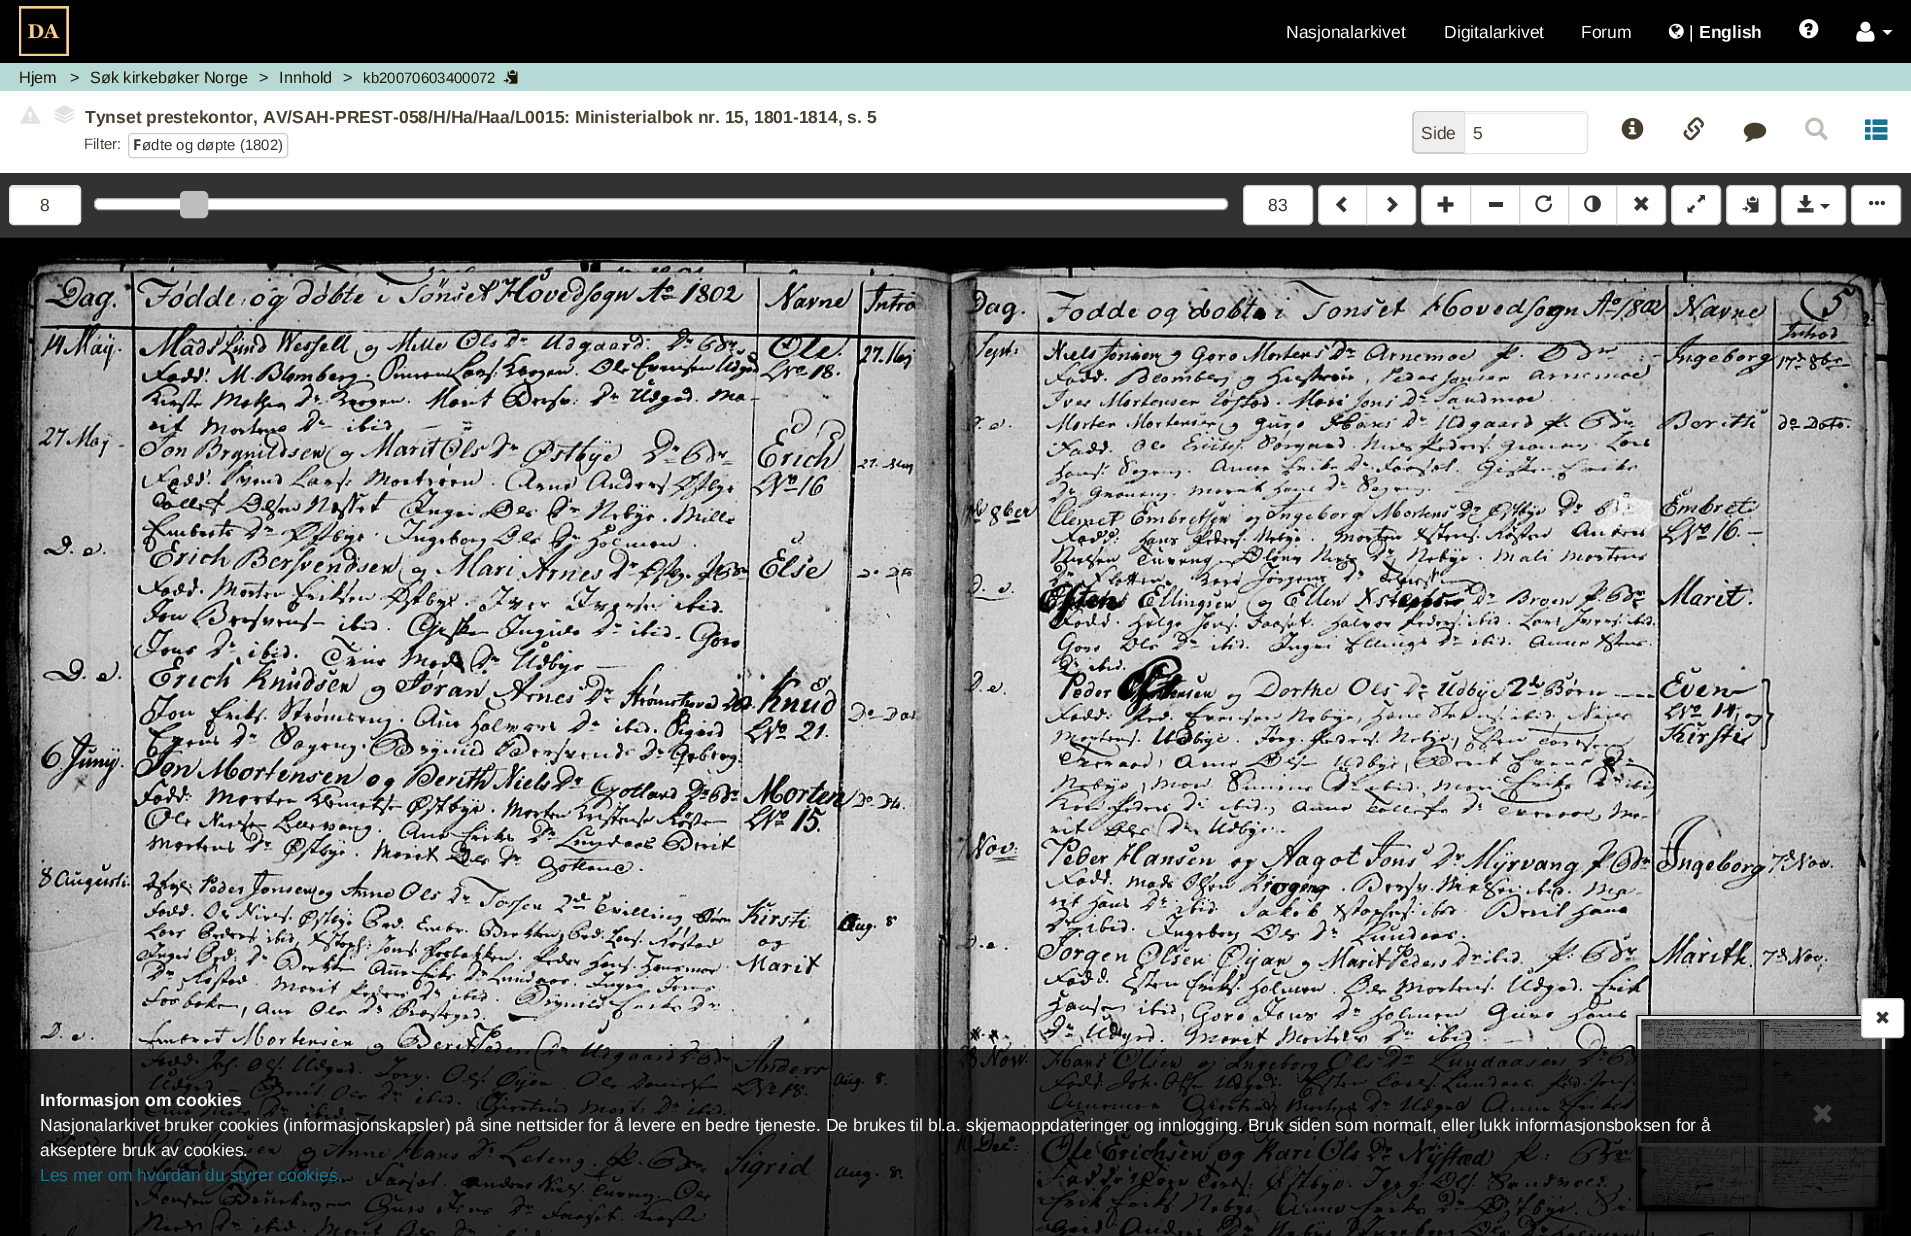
%!PS-Adobe-3.0
%%BoundingBox: 0 0 1911 1236
%%LanguageLevel: 3
%%Pages: 1
%%EndComments
%%BeginProlog
/setink { dup -16 bitshift 255 div exch dup -8 bitshift 255 and 255 div exch 255 and 255 div setrgbcolor } def
/usefont { [ exch dup neg 0 0 3 -1 roll 0 0 ] selectfont } def
/setalpha { dup .setfillconstantalpha .setstrokeconstantalpha } def
/rrect { 5 dict begin { /r /h /w /y /x } { exch def } forall
  x r add y moveto x w add y 2 copy h add r arct x w add y h add x 1 index r arct
  x y h add x y r arct x y 2 copy exch w add exch r arct closepath end } def
/softshadow { 12 dict begin { /a /b /q /h /w /y /x } { exch def } forall gsave /was 0 def
  9 -2 -9 { dup b mul 4 div /e exch def 1 sub .425 mul 2.718 exch exp 1 add a .99 .min exch div /now exch def
    1 1 now sub 1 was sub div sub setalpha /was now def
    w h .min e 2 mul add 0 gt { x e sub y e sub w e 2 mul add h e 2 mul add
      q e add b .6 mul add w h .min 2 div e add .min 0 .max rrect fill } if } for grestore end } def
/drawimage { 5 dict begin { /h /w /y /x /name } { exch def } forall
  gsave x y translate w h scale
  w h 8 [w 0 0 h 0 0] name (r) file false 3 colorimage grestore end } def
%%EndProlog
%%BeginSetup
<< /PageSize [1911 1236] /PageUsesTransparency true >> setpagedevice
%%EndSetup
%%Page: 1 1
0 .pushpdf14devicefilter
0 1236 translate 1 -1 scale
4 setmiterlimit
16#B6D9D6 setink
0 0 1911 1236 rectfill
16#000000 setink
0 0 1911 63 rectfill
(img1.raw) 19 6 50 50 drawimage
/LiberationSans-Regular 17.5 usefont
16#FFFFFF setink
[
    [(Nasjonalarkivet) 1286 38]
    [(Digitalarkivet) 1444 38]
    [(Forum) 1581 38]
] { aload pop moveto show } forall
(img2.raw) 1668 23 16 16 drawimage
1689 38 moveto (|) show
/LiberationSans-Bold 17.5 usefont
1699 38 moveto (English) show
(img3.raw) 1799 19 20 20 drawimage
(img4.raw) 1856 21 19 21 drawimage
1882.5 30 moveto 1892.5 30 lineto 1887.5 35 lineto closepath fill
/LiberationSans-Regular 16.25 usefont
16#1D1705 setink
[
    [(Hjem) 19 83]
    [(>) 70 83]
    [(Søk kirkebøker Norge) 90 83]
    [(>) 259 83]
    [(Innhold) 279 83]
    [(>) 343 83]
] { aload pop moveto show } forall
/LiberationSans-Regular 15 usefont
363 83 moveto (kb20070603400072) show
(img5.raw) 503 70 15 14 drawimage
16#FFFFFF setink
0 91 1911 82 rectfill
(img6.raw) 20 105 21 19 drawimage
(img11.raw) 54 116 21 8 drawimage
(img10.raw) 56 115 17 6 drawimage
(img9.raw) 54 113 20 7 drawimage
(img8.raw) 56 111 17 7 drawimage
(img7.raw) 54 105 21 11 drawimage
/LiberationSans-Bold 17.5 usefont
16#463E2F setink
85 123 moveto (Tynset prestekontor, AV/SAH-PREST-058/H/Ha/Haa/L0015: Ministerialbok nr. 15, 1801-1814, s. 5) show
/LiberationSans-Regular 15 usefont
84 149 moveto (Filter:) show
16#CCCCCC setink
128.5 133.5 159 24 3.5 rrect stroke
/NotoSans-Bold 15 usefont
16#333333 setink
133 150 moveto (F) show
/LiberationSans-Regular 15 usefont
142 150 moveto (ødte og døpte \(1802\)) show
16#EEEEEE setink
1418 111 moveto 1464 111 lineto 1464 154 lineto 1418 154 lineto 1415 154 1413 152 1413 149 curveto 1413 116 lineto 1413 113 1415 111 1418 111 curveto closepath fill
16#CCCCCC setink
1418 111 moveto 1464 111 lineto 1464 154 lineto 1418 154 lineto 1415 154 1412 152 1412 149 curveto 1412 116 lineto 1412 113 1415 111 1418 111 curveto closepath 1418 112 moveto 1464 112 lineto 1464 152 lineto 1418 152 lineto 1415 152 1414 151 1414 149 curveto 1414 116 lineto 1414 114 1415 112 1418 112 curveto closepath eofill
/LiberationSans-Regular 17.5 usefont
16#463E2F setink
1421 139 moveto (Side) show
16#ECECEC setink
1465 114 moveto 1582 114 lineto 1585 114 1586 115 1586 118 curveto 1586 117 lineto 1586 115 1584 113 1582 113 curveto 1465 113 lineto closepath fill
16#E3E2E0 setink
1464.5 111.5 moveto 1583 111.5 lineto 1585.5 111.5 1587.5 113.5 1587.5 116 curveto 1587.5 149 lineto 1587.5 151.5 1585.5 153.5 1583 153.5 curveto 1464.5 153.5 lineto closepath stroke
16#463E2F setink
1473 139 moveto (5) show
(img12.raw) 1621 117 23 23 drawimage
(img13.raw) 1683 117 21 24 drawimage
(img14.raw) 1743 122 24 20 drawimage
(img15.raw) 1805 117 23 24 drawimage
(img16.raw) 1865 119 23 21 drawimage
16#333231 setink
0 173 1911 65 rectfill
16#FFFFFF setink
9 185 72 40 5 rrect fill
16#ECECEC setink
14 188 moveto 76 188 lineto 78 188 80 189 80 191 curveto 80 184 71 186 66 186 curveto 24 186 lineto 19 186 10 184 10 191 curveto 10 189 12 188 14 188 curveto closepath fill
16#E3E2E0 setink
9.5 185.5 71 39 4.5 rrect stroke
16#463E2F setink
40 211 moveto (8) show
16#FFFFFF setink
94.5 198.5 1133 11 4.5 rrect gsave fill grestore
16#AAAAAA setink
stroke
16#BFBEBD setink
180.5 191.5 27 26 4.5 rrect gsave fill grestore
stroke
16#FFFFFF setink
1243.5 185.5 69 39 4.5 rrect gsave fill grestore
16#CCCCCC setink
stroke
16#333333 setink
1268 211 moveto (83) show
16#FFFFFF setink
1323 185.5 moveto 1367.5 185.5 lineto 1367.5 224.5 lineto 1323 224.5 lineto 1320.5 224.5 1318.5 222.5 1318.5 220 curveto 1318.5 190 lineto 1318.5 187.5 1320.5 185.5 1323 185.5 curveto closepath gsave fill grestore
16#CCCCCC setink
stroke
(img17.raw) 1335 196 12 17 drawimage
16#FFFFFF setink
1366.5 185.5 moveto 1411 185.5 lineto 1413.5 185.5 1415.5 187.5 1415.5 190 curveto 1415.5 220 lineto 1415.5 222.5 1413.5 224.5 1411 224.5 curveto 1366.5 224.5 lineto closepath gsave fill grestore
16#CCCCCC setink
stroke
(img18.raw) 1387 196 11 17 drawimage
16#FFFFFF setink
1426 185.5 moveto 1470.5 185.5 lineto 1470.5 224.5 lineto 1426 224.5 lineto 1423.5 224.5 1421.5 222.5 1421.5 220 curveto 1421.5 190 lineto 1421.5 187.5 1423.5 185.5 1426 185.5 curveto closepath gsave fill grestore
16#CCCCCC setink
stroke
(img19.raw) 1437 196 17 17 drawimage
16#FFFFFF setink
1470.5 185.5 moveto 1519.5 185.5 lineto 1519.5 224.5 lineto 1470.5 224.5 lineto closepath gsave fill grestore
16#CCCCCC setink
stroke
16#333333 setink
1489 202 14 5 rectfill
16#FFFFFF setink
1519.5 185.5 moveto 1568.5 185.5 lineto 1568.5 224.5 lineto 1519.5 224.5 lineto closepath gsave fill grestore
16#CCCCCC setink
stroke
(img20.raw) 1535 195 18 18 drawimage
16#FFFFFF setink
1569 186 47 38 rectfill
16#CCCCCC setink
1568.5 185.5 49 39 rectstroke
(img21.raw) 1584 195 17 18 drawimage
16#FFFFFF setink
1616.5 185.5 moveto 1661 185.5 lineto 1663.5 185.5 1665.5 187.5 1665.5 190 curveto 1665.5 220 lineto 1665.5 222.5 1663.5 224.5 1661 224.5 curveto 1616.5 224.5 lineto closepath gsave fill grestore
16#CCCCCC setink
stroke
(img22.raw) 1634 196 15 15 drawimage
16#FFFFFF setink
1671.5 185.5 49 39 4.5 rrect gsave fill grestore
16#CCCCCC setink
stroke
(img23.raw) 1687 195 18 18 drawimage
16#FFFFFF setink
1726.5 185.5 49 39 4.5 rrect gsave fill grestore
16#CCCCCC setink
stroke
(img24.raw) 1742 196 17 17 drawimage
16#FFFFFF setink
1781.5 185.5 64 39 4.5 rrect gsave fill grestore
16#CCCCCC setink
stroke
(img25.raw) 1797 195 17 18 drawimage
16#333333 setink
1820 204 moveto 1830 204 lineto 1825 209 lineto closepath fill
16#FFFFFF setink
1851.5 185.5 49 39 4.5 rrect gsave fill grestore
16#CCCCCC setink
stroke
(img26.raw) 1869 200 16 6 drawimage
(img27.raw) 0 237 1911 999 drawimage
16#323232 setink
1638 1016 250 197 0 3 1 softshadow
16#000000 setink
1636.5 1015.5 249 195 rectstroke
(img29.raw) 1637 1016 248 194 drawimage
0.5 setalpha
1638 1016 247 130 rectfill
0.9 setalpha
16#FFFFFF setink
3 setlinewidth
1639.5 1017.5 244 127 rectstroke
1 setalpha
16#000000 setink
1861 999 43 40 4 0.5 0.1 softshadow
16#FFFFFF setink
1861.5 998.5 42 39 3.5 rrect gsave fill grestore
16#CCCCCC setink
1 setlinewidth
stroke
(img28.raw) 1876 1011 13 13 drawimage
0.8 setalpha
16#000000 setink
10 1049 1883 187 rectfill
/LiberationSans-Bold 17.5 usefont
1 setalpha
16#FFFFFF setink
40 1106 moveto (Informasjon om cookies) show
(img30.raw) 1813 1104 19 19 drawimage
/LiberationSans-Regular 17.5 usefont
40 1131 moveto (Nasjonalarkivet bruker cookies \(informasjonskapsler\) på sine nettsider for å levere en bedre tjeneste. De brukes til bl.a. skjemaoppdateringer og innlogging. Bruk siden som normalt, eller lukk informasjonsboksen for å) show
40 1156 moveto (akseptere bruk av cookies.) show
16#177391 setink
40 1181 moveto (Les mer om hvordan du styrer cookies.) show
.poppdf14devicefilter showpage
%%EOF
